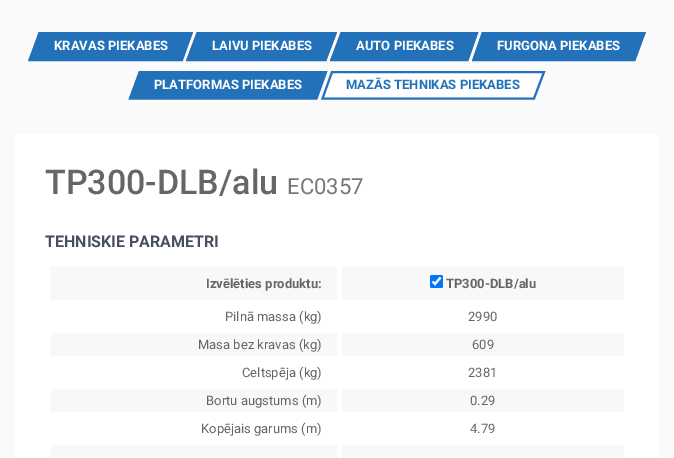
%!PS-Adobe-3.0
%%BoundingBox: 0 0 674 458
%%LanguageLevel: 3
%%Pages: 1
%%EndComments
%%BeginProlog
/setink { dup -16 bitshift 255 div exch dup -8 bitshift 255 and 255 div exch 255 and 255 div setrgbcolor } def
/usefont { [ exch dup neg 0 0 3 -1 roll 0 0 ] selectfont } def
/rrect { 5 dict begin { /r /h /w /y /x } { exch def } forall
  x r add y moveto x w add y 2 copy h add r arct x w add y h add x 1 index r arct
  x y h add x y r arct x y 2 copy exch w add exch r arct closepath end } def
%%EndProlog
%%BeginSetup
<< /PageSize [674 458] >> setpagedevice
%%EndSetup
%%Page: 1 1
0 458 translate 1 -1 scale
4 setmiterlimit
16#FAFAFA setink
0 0 674 458 rectfill
16#2372B9 setink
39 32 moveto 193 32 lineto 182 61 lineto 28 61 lineto closepath fill
2 setlinewidth
39.5 33 moveto 191.5 33 lineto 182 60 lineto 30 60 lineto closepath stroke
/Roboto-Bold 13 usefont
16#FFFFFF setink
54 50 moveto (KRAVAS PIEKABES) show
16#2372B9 setink
197 32 moveto 337 32 lineto 326 61 lineto 186 61 lineto closepath fill
197.5 33 moveto 335.5 33 lineto 325.5 60 lineto 187.5 60 lineto closepath stroke
16#FFFFFF setink
212 50 moveto (LAIVU PIEKABES) show
16#2372B9 setink
341 32 moveto 478 32 lineto 468 61 lineto 330 61 lineto closepath fill
341.5 33 moveto 477 33 lineto 467.5 60 lineto 331.5 60 lineto closepath stroke
16#FFFFFF setink
356 50 moveto (AUTO PIEKABES) show
16#2372B9 setink
482 32 moveto 646 32 lineto 635 61 lineto 472 61 lineto closepath fill
483 33 moveto 644 33 lineto 634.5 60 lineto 473.5 60 lineto closepath stroke
16#FFFFFF setink
497 50 moveto (FURGONA PIEKABES) show
16#2372B9 setink
139 71 moveto 327 71 lineto 317 99 lineto 129 99 lineto closepath fill
140 72 moveto 326 72 lineto 316.5 98.5 lineto 130 98.5 lineto closepath stroke
16#FFFFFF setink
154 89 moveto (PLATFORMAS PIEKABES) show
331 71 moveto 545 71 lineto 535 99 lineto 321 99 lineto closepath fill
16#2372B9 setink
332 72 moveto 544 72 lineto 534 98.5 lineto 322.5 98.5 lineto closepath stroke
346 89 moveto (MAZĀS TEHNIKAS PIEKABES) show
16#FFFFFF setink
15 134 644 324 rectfill
/Roboto-Medium 34 usefont
16#666666 setink
45 194 moveto (TP300-DLB/alu) show
/Roboto-Regular 22 usefont
16#777777 setink
287 194 moveto (EC0357) show
/Roboto-Bold 16 usefont
16#474E5D setink
45 247 moveto (TEHNISKIE PARAMETRI) show
16#F8F8F8 setink
50 266 287 34 rectfill
/Roboto-Bold 13 usefont
16#666666 setink
206 288 moveto (Izvēlēties produktu:) show
16#F8F8F8 setink
342 266 282 34 rectfill
16#0075FF setink
430 275 13 13 2 rrect fill
16#FFFFFF setink
2.1 setlinewidth
432.5 281.5 moveto 435 284 lineto 440.5 277.5 lineto stroke
16#666666 setink
446 288 moveto (TP300-DLB/alu) show
/Roboto-Regular 13 usefont
225 321 moveto (Pilnā massa \(kg\)) show
468 321 moveto (2990) show
16#F8F8F8 setink
50 333 287 23 rectfill
16#666666 setink
198 349 moveto (Masa bez kravas \(kg\)) show
16#F8F8F8 setink
342 333 282 23 rectfill
16#666666 setink
[
    [(609) 472 349]
    [(Celtspēja \(kg\)) 242 377]
    [(2381) 468 377]
] { aload pop moveto show } forall
16#F8F8F8 setink
50 389 287 23 rectfill
16#666666 setink
206 405 moveto (Bortu augstums \(m\)) show
16#F8F8F8 setink
342 389 282 23 rectfill
16#666666 setink
[
    [(0.29) 470 405]
    [(Kopējais garums \(m\)) 201 433]
    [(4.79) 470 433]
] { aload pop moveto show } forall
16#F8F8F8 setink
50 445 287 13 rectfill
342 445 282 13 rectfill
showpage
%%EOF
